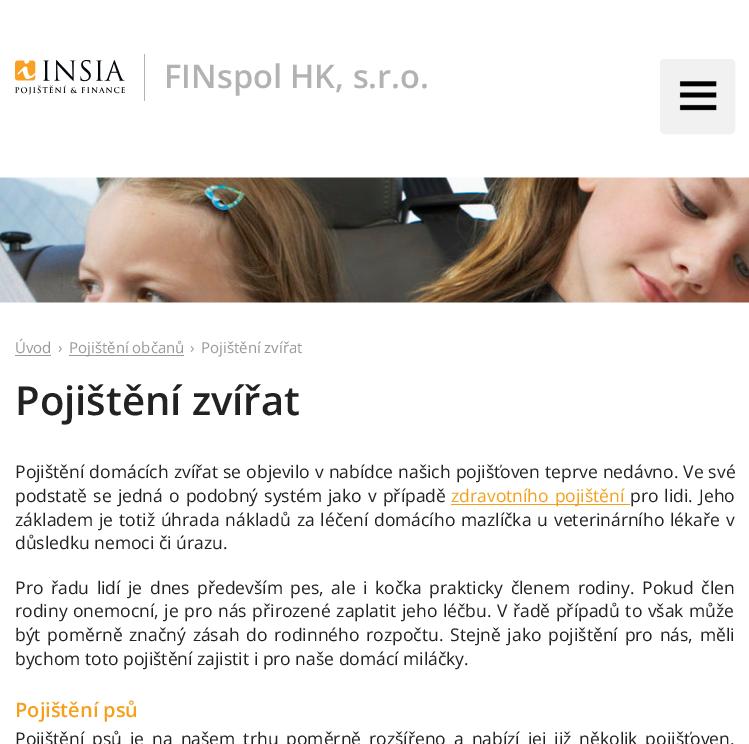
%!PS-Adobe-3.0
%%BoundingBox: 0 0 749 744
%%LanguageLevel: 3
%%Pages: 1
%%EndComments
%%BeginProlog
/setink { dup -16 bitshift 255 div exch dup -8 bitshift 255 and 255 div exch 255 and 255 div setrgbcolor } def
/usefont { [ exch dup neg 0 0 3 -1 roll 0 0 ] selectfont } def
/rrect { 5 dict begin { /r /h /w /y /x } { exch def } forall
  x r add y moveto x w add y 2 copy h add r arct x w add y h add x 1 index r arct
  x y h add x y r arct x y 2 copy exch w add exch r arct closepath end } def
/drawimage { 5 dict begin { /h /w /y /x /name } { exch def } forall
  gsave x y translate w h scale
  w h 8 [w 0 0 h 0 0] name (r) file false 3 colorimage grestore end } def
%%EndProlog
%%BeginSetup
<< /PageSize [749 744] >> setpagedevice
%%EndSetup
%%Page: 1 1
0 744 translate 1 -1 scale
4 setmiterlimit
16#FFFFFF setink
0 0 749 744 rectfill
16#B2B2B2 setink
144 54 1 47 rectfill
(img1.raw) 15 60 110 35 drawimage
/OpenSans-SemiBold 32.5 usefont
164 88 moveto (FINspol HK, s.r.o.) show
16#F1F1F1 setink
660 59 75 75 5 rrect fill
(img2.raw) 679 81 38 30 drawimage
660.5 59.5 74 74 4.5 rrect stroke
(img3.raw) 0 177 749 126 drawimage
/OpenSans-Regular 15 usefont
16#999999 setink
15 353 moveto (Úvod) show
15 355 36 1 rectfill
58 353 moveto (›) show
69 355 115 1 rectfill
[
    [(Pojištění občanů) 69 353]
    [(›) 190 353]
    [(Pojištění zvířat) 201 353]
] { aload pop moveto show } forall
/OpenSans-SemiBold 40 usefont
16#222222 setink
15 415 moveto (Pojištění zvířat) show
/OpenSans-Regular 17.5 usefont
15 478 moveto 0.5 0 32 (Pojištění domácích zvířat se objevilo v nabídce našich pojišťoven teprve nedávno. Ve své) widthshow
15 502 moveto 1.5 0 32 (podstatě se jedná o podobný systém jako v případě) widthshow
16#F69F1A setink
451 504 179 1 rectfill
451 502 moveto 1.5 0 32 (zdravotního pojištění) widthshow
16#222222 setink
630 502 moveto 1.5 0 32 (pro lidi. Jeho) widthshow
15 526 moveto 1.4 0 32 (základem je totiž úhrada nákladů za léčení domácího mazlíčka u veterinárního lékaře v) widthshow
15 549 moveto (důsledku nemoci či úrazu.) show
15 594 moveto 3 0 32 (Pro řadu lidí je dnes především pes, ale i kočka prakticky členem rodiny. Pokud člen) widthshow
15 617 moveto 1 0 32 (rodiny onemocní, je pro nás přirozené zaplatit jeho léčbu. V řadě případů to však může) widthshow
15 641 moveto 2.25 0 32 (být poměrně značný zásah do rodinného rozpočtu. Stejně jako pojištění pro nás, měli) widthshow
15 665 moveto (bychom toto pojištění zajistit i pro naše domácí miláčky.) show
/OpenSans-SemiBold 20 usefont
16#F69F1A setink
15 717 moveto (Pojištění psů) show
/OpenSans-Regular 17.5 usefont
16#222222 setink
15 745 moveto 3.4 0 32 (Pojištění psů je na našem trhu poměrně rozšířeno a nabízí jej již několik pojišťoven.) widthshow
showpage
%%EOF
